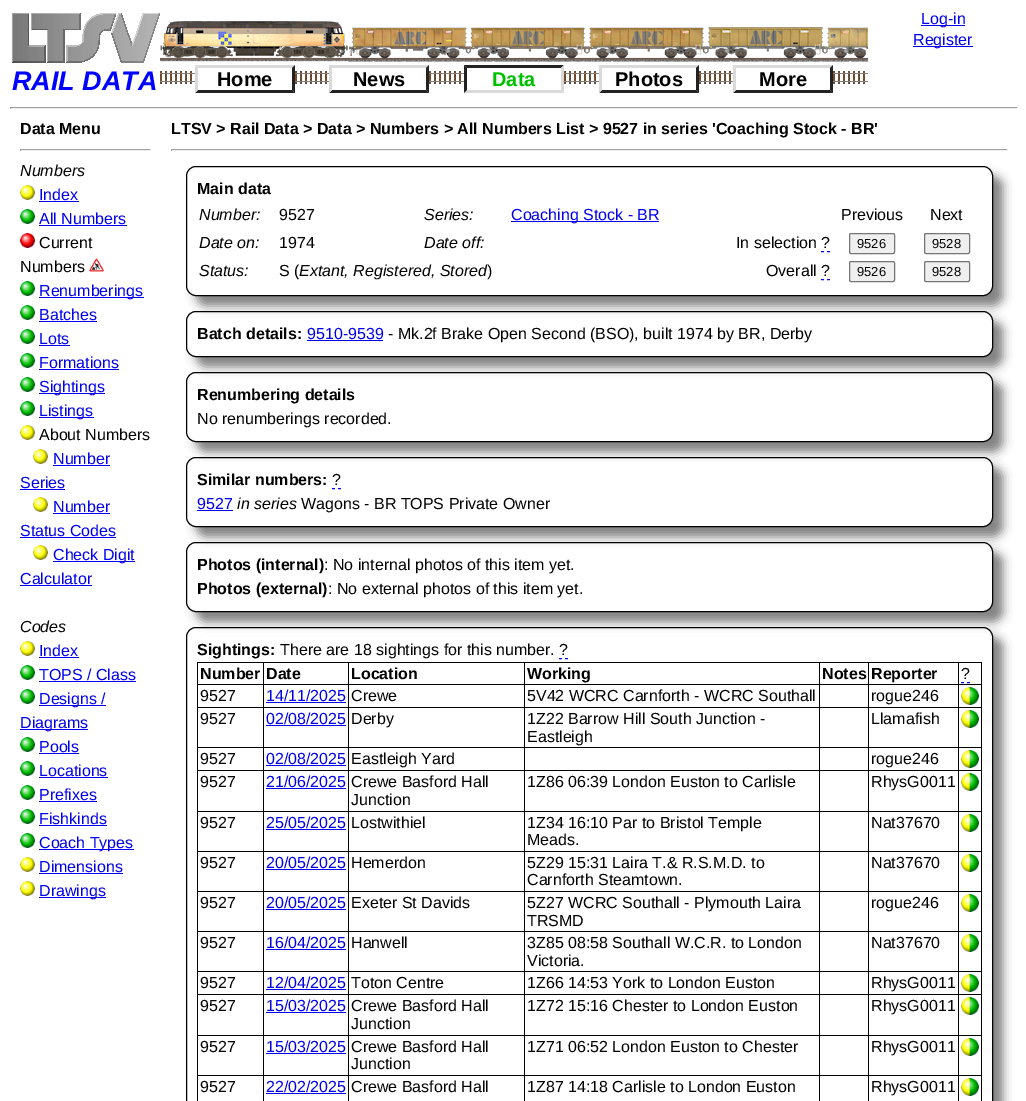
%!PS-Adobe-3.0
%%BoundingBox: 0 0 1026 1101
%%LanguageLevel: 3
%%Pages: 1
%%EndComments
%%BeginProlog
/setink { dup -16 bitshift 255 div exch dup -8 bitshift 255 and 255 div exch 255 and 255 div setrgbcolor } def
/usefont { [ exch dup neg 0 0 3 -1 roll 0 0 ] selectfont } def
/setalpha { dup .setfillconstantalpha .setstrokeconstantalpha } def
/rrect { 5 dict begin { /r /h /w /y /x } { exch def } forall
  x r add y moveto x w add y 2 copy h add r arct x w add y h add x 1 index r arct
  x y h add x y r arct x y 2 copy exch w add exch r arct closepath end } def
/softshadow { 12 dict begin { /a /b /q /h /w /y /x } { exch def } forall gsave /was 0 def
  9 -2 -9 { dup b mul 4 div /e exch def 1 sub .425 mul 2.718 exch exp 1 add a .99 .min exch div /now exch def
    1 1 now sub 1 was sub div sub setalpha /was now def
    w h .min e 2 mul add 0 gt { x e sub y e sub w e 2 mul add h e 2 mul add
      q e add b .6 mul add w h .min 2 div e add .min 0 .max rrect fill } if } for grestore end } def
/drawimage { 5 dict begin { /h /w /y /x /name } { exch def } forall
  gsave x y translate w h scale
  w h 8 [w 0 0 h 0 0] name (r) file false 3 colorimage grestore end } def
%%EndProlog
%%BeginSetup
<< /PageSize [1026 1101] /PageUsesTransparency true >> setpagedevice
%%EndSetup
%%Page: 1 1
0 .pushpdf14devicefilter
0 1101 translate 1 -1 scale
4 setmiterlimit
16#FFFFFF setink
0 0 1026 1101 rectfill
(img1.raw) 12 13 148 50 drawimage
(img2.raw) 160 20 708 42 drawimage
16#0000EE setink
921 25 44 1 rectfill
/LiberationSans-Regular 16 usefont
921 24 moveto (Log-in) show
913 46 60 1 rectfill
913 45 moveto (Register) show
/LiberationSans-BoldItalic 27 usefont
16#0000FF setink
12 90 moveto (RAIL DATA) show
(img3.raw) 160 71 35 13 drawimage
16#DADADA setink
195 65 moveto 295 65 lineto 292 68 lineto 198 68 lineto closepath fill
16#222222 setink
295 65 moveto 295 93 lineto 292 90 lineto 292 68 lineto closepath fill
295 93 moveto 195 93 lineto 198 90 lineto 292 90 lineto closepath fill
16#DADADA setink
195 93 moveto 195 65 lineto 198 68 lineto 198 90 lineto closepath fill
/LiberationSans-Bold 20 usefont
16#000000 setink
217 86 moveto (Home) show
(img4.raw) 295 71 34 13 drawimage
16#DADADA setink
329 65 moveto 429 65 lineto 426 68 lineto 332 68 lineto closepath fill
16#222222 setink
429 65 moveto 429 93 lineto 426 90 lineto 426 68 lineto closepath fill
429 93 moveto 329 93 lineto 332 90 lineto 426 90 lineto closepath fill
16#DADADA setink
329 93 moveto 329 65 lineto 332 68 lineto 332 90 lineto closepath fill
16#000000 setink
353 86 moveto (News) show
(img3.raw) 429 71 35 13 drawimage
16#222222 setink
464 65 moveto 564 65 lineto 561 68 lineto 467 68 lineto closepath fill
16#DADADA setink
564 65 moveto 564 93 lineto 561 90 lineto 561 68 lineto closepath fill
564 93 moveto 464 93 lineto 467 90 lineto 561 90 lineto closepath fill
16#222222 setink
464 93 moveto 464 65 lineto 467 68 lineto 467 90 lineto closepath fill
16#00C000 setink
492 86 moveto (Data) show
(img3.raw) 564 71 35 13 drawimage
16#DADADA setink
599 65 moveto 699 65 lineto 696 68 lineto 602 68 lineto closepath fill
16#222222 setink
699 65 moveto 699 93 lineto 696 90 lineto 696 68 lineto closepath fill
699 93 moveto 599 93 lineto 602 90 lineto 696 90 lineto closepath fill
16#DADADA setink
599 93 moveto 599 65 lineto 602 68 lineto 602 90 lineto closepath fill
16#000000 setink
615 86 moveto (Photos) show
(img4.raw) 699 71 34 13 drawimage
16#DADADA setink
733 65 moveto 833 65 lineto 830 68 lineto 736 68 lineto closepath fill
16#222222 setink
833 65 moveto 833 93 lineto 830 90 lineto 830 68 lineto closepath fill
833 93 moveto 733 93 lineto 736 90 lineto 830 90 lineto closepath fill
16#DADADA setink
733 93 moveto 733 65 lineto 736 68 lineto 736 90 lineto closepath fill
16#000000 setink
759 86 moveto (More) show
(img3.raw) 833 71 35 13 drawimage
[
    [10 107 1008 1 16#9F9F9F]
    [1017 107 1 2 16#EEEEEE]
    [10 108 1008 1 16#EEEEEE]
    [10 107 1 2 16#9F9F9F]
] { aload pop setink rectfill } forall
/LiberationSans-Bold 16 usefont
16#000000 setink
20 134 moveto (Data Menu) show
[
    [20 149 131 1 16#9F9F9F]
    [150 149 1 2 16#EEEEEE]
    [20 150 131 1 16#EEEEEE]
    [20 149 1 2 16#9F9F9F]
] { aload pop setink rectfill } forall
/LiberationSans-Italic 16 usefont
16#000000 setink
20 176 moveto (Numbers) show
(img5.raw) 20 185 15 15 drawimage
/LiberationSans-Regular 16 usefont
16#0000EE setink
39 200 moveto (Index) show
39 201 40 1 rectfill
(img6.raw) 20 209 15 15 drawimage
39 224 moveto (All Numbers) show
39 225 88 1 rectfill
(img7.raw) 20 233 15 15 drawimage
16#000000 setink
39 248 moveto (Current) show
20 272 moveto (Numbers) show
(img8.raw) 89 258 15 14 drawimage
(img6.raw) 20 281 15 15 drawimage
16#0000EE setink
39 297 105 1 rectfill
39 296 moveto (Renumberings) show
(img6.raw) 20 305 15 15 drawimage
39 320 moveto (Batches) show
39 321 58 1 rectfill
(img6.raw) 20 329 15 15 drawimage
39 344 moveto (Lots) show
39 345 31 1 rectfill
(img6.raw) 20 353 15 15 drawimage
39 368 moveto (Formations) show
39 369 80 1 rectfill
(img6.raw) 20 377 15 15 drawimage
39 393 66 1 rectfill
39 392 moveto (Sightings) show
(img6.raw) 20 401 15 15 drawimage
39 417 55 1 rectfill
39 416 moveto (Listings) show
(img5.raw) 20 425 15 15 drawimage
16#000000 setink
39 440 moveto (About Numbers) show
(img9.raw) 33 449 15 15 drawimage
16#0000EE setink
53 464 moveto (Number) show
53 465 57 1 rectfill
20 488 moveto (Series) show
20 489 45 1 rectfill
(img9.raw) 33 497 15 15 drawimage
53 512 moveto (Number) show
53 513 57 1 rectfill
20 536 moveto (Status Codes) show
20 537 96 1 rectfill
(img9.raw) 33 545 15 15 drawimage
53 561 82 1 rectfill
53 560 moveto (Check Digit) show
20 584 moveto (Calculator) show
20 585 72 1 rectfill
/LiberationSans-Italic 16 usefont
16#000000 setink
20 632 moveto (Codes) show
(img5.raw) 20 641 15 15 drawimage
/LiberationSans-Regular 16 usefont
16#0000EE setink
39 656 moveto (Index) show
39 657 40 1 rectfill
(img6.raw) 20 665 15 15 drawimage
39 680 moveto (TOPS / Class) show
39 681 97 1 rectfill
(img6.raw) 20 689 15 15 drawimage
39 705 67 1 rectfill
39 704 moveto (Designs /) show
20 729 68 1 rectfill
20 728 moveto (Diagrams) show
(img6.raw) 20 737 15 15 drawimage
39 752 moveto (Pools) show
39 753 40 1 rectfill
(img6.raw) 20 761 15 15 drawimage
39 776 moveto (Locations) show
39 777 69 1 rectfill
(img6.raw) 20 785 15 15 drawimage
39 800 moveto (Prefixes) show
39 801 58 1 rectfill
(img6.raw) 20 809 15 15 drawimage
39 824 moveto (Fishkinds) show
39 825 68 1 rectfill
(img6.raw) 20 833 15 15 drawimage
39 849 95 1 rectfill
39 848 moveto (Coach Types) show
(img5.raw) 20 857 15 15 drawimage
39 872 moveto (Dimensions) show
39 873 84 1 rectfill
(img5.raw) 20 881 15 15 drawimage
39 897 67 1 rectfill
39 896 moveto (Drawings) show
/LiberationSans-Bold 16 usefont
16#000000 setink
171 134 moveto (LTSV > Rail Data > Data > Numbers > All Numbers List > 9527 in series 'Coaching Stock - BR') show
[
    [171 149 837 1 16#9F9F9F]
    [1007 149 1 2 16#EEEEEE]
    [171 150 837 1 16#EEEEEE]
    [171 149 1 2 16#9F9F9F]
] { aload pop setink rectfill } forall
gsave
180 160 moveto 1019 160 lineto 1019 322 lineto 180 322 lineto closepath 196 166 moveto 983 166 lineto 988.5 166 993 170.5 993 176 curveto 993 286 lineto 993 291.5 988.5 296 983 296 curveto 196 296 lineto 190.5 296 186 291.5 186 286 curveto 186 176 lineto 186 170.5 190.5 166 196 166 curveto closepath eoclip newpath
16#000000 setink
196 176 807 130 10 5 0.5 softshadow
grestore
16#000000 setink
186.5 166.5 806 129 9.5 rrect stroke
197 194 moveto (Main data) show
/LiberationSans-Italic 16 usefont
199 220 moveto (Number:) show
/LiberationSans-Regular 16 usefont
279 220 moveto (9527) show
/LiberationSans-Italic 16 usefont
424 220 moveto (Series:) show
16#0000EE setink
511 221 148 1 rectfill
/LiberationSans-Regular 16 usefont
511 220 moveto (Coaching Stock - BR) show
16#000000 setink
841 220 moveto (Previous) show
930 220 moveto (Next) show
/LiberationSans-Italic 16 usefont
199 248 moveto (Date on:) show
/LiberationSans-Regular 16 usefont
279 248 moveto (1974) show
/LiberationSans-Italic 16 usefont
424 248 moveto (Date off:) show
/LiberationSans-Regular 16 usefont
736 248 moveto (In selection ?) show
16#0000FF setink
821 251.5 moveto 824 251.5 lineto 827 251.5 moveto 830 251.5 lineto 821 279.5 moveto 824 279.5 lineto 827 279.5 moveto 830 279.5 lineto stroke
16#EFEFEF setink
849.5 233.5 45 20 1.5 rrect gsave fill grestore
16#767676 setink
stroke
/LiberationSans-Regular 13 usefont
16#000000 setink
857 248 moveto (9526) show
16#EFEFEF setink
924.5 233.5 45 20 1.5 rrect gsave fill grestore
16#767676 setink
stroke
16#000000 setink
932 248 moveto (9528) show
/LiberationSans-Italic 16 usefont
199 276 moveto (Status:) show
/LiberationSans-Regular 16 usefont
279 276 moveto (S \() show
/LiberationSans-Italic 16 usefont
299 276 moveto (Extant, Registered, Stored) show
/LiberationSans-Regular 16 usefont
[
    [(\)) 487 276]
    [(Overall) 766 276]
    [(?) 821 276]
] { aload pop moveto show } forall
16#EFEFEF setink
849.5 261.5 45 20 1.5 rrect gsave fill grestore
16#767676 setink
stroke
/LiberationSans-Regular 13 usefont
16#000000 setink
857 276 moveto (9526) show
16#EFEFEF setink
924.5 261.5 45 20 1.5 rrect gsave fill grestore
16#767676 setink
stroke
16#000000 setink
932 276 moveto (9528) show
gsave
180 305 moveto 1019 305 lineto 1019 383 lineto 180 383 lineto closepath 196 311 moveto 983 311 lineto 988.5 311 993 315.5 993 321 curveto 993 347 lineto 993 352.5 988.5 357 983 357 curveto 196 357 lineto 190.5 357 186 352.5 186 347 curveto 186 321 lineto 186 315.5 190.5 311 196 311 curveto closepath eoclip newpath
196 321 807 46 10 5 0.5 softshadow
grestore
186.5 311.5 806 45 9.5 rrect stroke
/LiberationSans-Bold 16 usefont
197 339 moveto (Batch details:) show
/LiberationSans-Regular 16 usefont
16#0000EE setink
307 339 moveto (9510-9539) show
307 340 76 1 rectfill
16#000000 setink
388 339 moveto (- Mk.2f Brake Open Second \(BSO\), built 1974 by BR, Derby) show
gsave
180 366 moveto 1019 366 lineto 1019 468 lineto 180 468 lineto closepath 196 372 moveto 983 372 lineto 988.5 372 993 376.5 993 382 curveto 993 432 lineto 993 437.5 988.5 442 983 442 curveto 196 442 lineto 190.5 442 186 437.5 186 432 curveto 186 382 lineto 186 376.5 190.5 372 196 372 curveto closepath eoclip newpath
196 382 807 70 10 5 0.5 softshadow
grestore
186.5 372.5 806 69 9.5 rrect stroke
/LiberationSans-Bold 16 usefont
197 400 moveto (Renumbering details) show
/LiberationSans-Regular 16 usefont
197 424 moveto (No renumberings recorded.) show
gsave
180 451 moveto 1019 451 lineto 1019 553 lineto 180 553 lineto closepath 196 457 moveto 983 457 lineto 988.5 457 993 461.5 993 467 curveto 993 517 lineto 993 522.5 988.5 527 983 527 curveto 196 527 lineto 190.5 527 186 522.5 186 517 curveto 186 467 lineto 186 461.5 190.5 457 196 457 curveto closepath eoclip newpath
196 467 807 70 10 5 0.5 softshadow
grestore
186.5 457.5 806 69 9.5 rrect stroke
/LiberationSans-Bold 16 usefont
197 485 moveto (Similar numbers:) show
/LiberationSans-Regular 16 usefont
332 485 moveto (?) show
16#0000FF setink
332 488.5 moveto 335 488.5 lineto 338 488.5 moveto 341 488.5 lineto stroke
16#0000EE setink
197 509 moveto (9527) show
197 510 36 1 rectfill
/LiberationSans-Italic 16 usefont
16#000000 setink
237 509 moveto (in series) show
/LiberationSans-Regular 16 usefont
301 509 moveto (Wagons - BR TOPS Private Owner) show
gsave
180 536 moveto 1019 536 lineto 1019 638 lineto 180 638 lineto closepath 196 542 moveto 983 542 lineto 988.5 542 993 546.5 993 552 curveto 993 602 lineto 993 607.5 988.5 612 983 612 curveto 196 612 lineto 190.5 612 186 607.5 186 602 curveto 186 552 lineto 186 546.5 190.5 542 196 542 curveto closepath eoclip newpath
196 552 807 70 10 5 0.5 softshadow
grestore
186.5 542.5 806 69 9.5 rrect stroke
/LiberationSans-Bold 16 usefont
197 570 moveto (Photos \(internal\)) show
/LiberationSans-Regular 16 usefont
324 570 moveto (: No internal photos of this item yet.) show
/LiberationSans-Bold 16 usefont
197 594 moveto (Photos \(external\)) show
/LiberationSans-Regular 16 usefont
328 594 moveto (: No external photos of this item yet.) show
gsave
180 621 moveto 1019 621 lineto 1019 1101 lineto 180 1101 lineto closepath 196 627 moveto 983 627 lineto 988.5 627 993 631.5 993 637 curveto 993 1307 lineto 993 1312.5 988.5 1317 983 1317 curveto 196 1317 lineto 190.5 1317 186 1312.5 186 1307 curveto 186 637 lineto 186 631.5 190.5 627 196 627 curveto closepath eoclip newpath
196 637 807 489 10 5 0.5 softshadow
grestore
186.5 627.5 806 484 9.5 rrect stroke
/LiberationSans-Bold 16 usefont
197 655 moveto (Sightings:) show
/LiberationSans-Regular 16 usefont
280 655 moveto (There are 18 sightings for this number. ?) show
16#0000FF setink
559 658.5 moveto 562 658.5 lineto 565 658.5 moveto 568 658.5 lineto stroke
[
    [958 662 24 1 16#000000]
    [958 684 24 1 16#000000]
    [958 707 24 1 16#000000]
    [958 747 24 1 16#000000]
    [958 770 24 1 16#000000]
    [958 811 24 1 16#000000]
    [958 851 24 1 16#000000]
    [958 891 24 1 16#000000]
    [958 931 24 1 16#000000]
    [958 971 24 1 16#000000]
    [958 994 24 1 16#000000]
    [958 1035 24 1 16#000000]
    [958 1075 24 1 16#000000]
    [958 1075 1 26 16#000000]
    [868 1075 91 1 16#000000]
    [958 1035 1 41 16#000000]
    [868 1035 91 1 16#000000]
    [958 994 1 42 16#000000]
    [868 994 91 1 16#000000]
    [958 971 1 24 16#000000]
    [868 971 91 1 16#000000]
    [958 931 1 41 16#000000]
    [868 931 91 1 16#000000]
    [958 891 1 41 16#000000]
    [868 891 91 1 16#000000]
    [958 851 1 41 16#000000]
    [868 851 91 1 16#000000]
    [958 811 1 41 16#000000]
    [868 811 91 1 16#000000]
    [958 770 1 42 16#000000]
    [868 770 91 1 16#000000]
    [958 747 1 24 16#000000]
    [868 747 91 1 16#000000]
    [958 707 1 41 16#000000]
    [868 707 91 1 16#000000]
    [958 684 1 24 16#000000]
    [868 684 91 1 16#000000]
    [958 662 1 23 16#000000]
    [868 662 91 1 16#000000]
    [868 1075 1 26 16#000000]
    [819 1075 50 1 16#000000]
    [868 1035 1 41 16#000000]
    [819 1035 50 1 16#000000]
    [868 994 1 42 16#000000]
    [819 994 50 1 16#000000]
    [868 971 1 24 16#000000]
    [819 971 50 1 16#000000]
    [868 931 1 41 16#000000]
    [819 931 50 1 16#000000]
    [868 891 1 41 16#000000]
    [819 891 50 1 16#000000]
    [868 851 1 41 16#000000]
    [819 851 50 1 16#000000]
    [868 811 1 41 16#000000]
    [819 811 50 1 16#000000]
    [868 770 1 42 16#000000]
    [819 770 50 1 16#000000]
    [868 747 1 24 16#000000]
    [819 747 50 1 16#000000]
    [868 707 1 41 16#000000]
    [819 707 50 1 16#000000]
    [868 684 1 24 16#000000]
    [819 684 50 1 16#000000]
    [868 662 1 23 16#000000]
    [819 662 50 1 16#000000]
    [819 1075 1 26 16#000000]
    [524 1075 296 1 16#000000]
    [819 1035 1 41 16#000000]
    [524 1035 296 1 16#000000]
    [819 994 1 42 16#000000]
    [524 994 296 1 16#000000]
    [819 971 1 24 16#000000]
    [524 971 296 1 16#000000]
    [819 931 1 41 16#000000]
    [524 931 296 1 16#000000]
    [819 891 1 41 16#000000]
    [524 891 296 1 16#000000]
    [819 851 1 41 16#000000]
    [524 851 296 1 16#000000]
    [819 811 1 41 16#000000]
    [524 811 296 1 16#000000]
    [819 770 1 42 16#000000]
    [524 770 296 1 16#000000]
    [819 747 1 24 16#000000]
    [524 747 296 1 16#000000]
    [819 707 1 41 16#000000]
    [524 707 296 1 16#000000]
    [819 684 1 24 16#000000]
    [524 684 296 1 16#000000]
    [819 662 1 23 16#000000]
    [524 662 296 1 16#000000]
    [524 1075 1 26 16#000000]
    [348 1075 177 1 16#000000]
    [524 1035 1 41 16#000000]
    [348 1035 177 1 16#000000]
    [524 994 1 42 16#000000]
    [348 994 177 1 16#000000]
    [524 971 1 24 16#000000]
    [348 971 177 1 16#000000]
    [524 931 1 41 16#000000]
    [348 931 177 1 16#000000]
    [524 891 1 41 16#000000]
    [348 891 177 1 16#000000]
    [524 851 1 41 16#000000]
    [348 851 177 1 16#000000]
    [524 811 1 41 16#000000]
    [348 811 177 1 16#000000]
    [524 770 1 42 16#000000]
    [348 770 177 1 16#000000]
    [524 747 1 24 16#000000]
    [348 747 177 1 16#000000]
    [524 707 1 41 16#000000]
    [348 707 177 1 16#000000]
    [524 684 1 24 16#000000]
    [348 684 177 1 16#000000]
    [524 662 1 23 16#000000]
    [348 662 177 1 16#000000]
    [348 1075 1 26 16#000000]
    [263 1075 86 1 16#000000]
    [348 1035 1 41 16#000000]
    [263 1035 86 1 16#000000]
    [348 994 1 42 16#000000]
    [263 994 86 1 16#000000]
    [348 971 1 24 16#000000]
    [263 971 86 1 16#000000]
    [348 931 1 41 16#000000]
    [263 931 86 1 16#000000]
    [348 891 1 41 16#000000]
    [263 891 86 1 16#000000]
    [348 851 1 41 16#000000]
    [263 851 86 1 16#000000]
    [348 811 1 41 16#000000]
    [263 811 86 1 16#000000]
    [348 770 1 42 16#000000]
    [263 770 86 1 16#000000]
    [348 747 1 24 16#000000]
    [263 747 86 1 16#000000]
    [348 707 1 41 16#000000]
    [263 707 86 1 16#000000]
    [348 684 1 24 16#000000]
    [263 684 86 1 16#000000]
    [348 662 1 23 16#000000]
    [263 662 86 1 16#000000]
    [263 1075 1 26 16#000000]
    [197 1075 67 1 16#000000]
    [263 1035 1 41 16#000000]
    [197 1035 67 1 16#000000]
    [263 994 1 42 16#000000]
    [197 994 67 1 16#000000]
    [263 971 1 24 16#000000]
    [197 971 67 1 16#000000]
    [263 931 1 41 16#000000]
    [197 931 67 1 16#000000]
    [263 891 1 41 16#000000]
    [197 891 67 1 16#000000]
    [263 851 1 41 16#000000]
    [197 851 67 1 16#000000]
    [263 811 1 41 16#000000]
    [197 811 67 1 16#000000]
    [263 770 1 42 16#000000]
    [197 770 67 1 16#000000]
    [263 747 1 24 16#000000]
    [197 747 67 1 16#000000]
    [263 707 1 41 16#000000]
    [197 707 67 1 16#000000]
    [263 684 1 24 16#000000]
    [197 684 67 1 16#000000]
    [263 662 1 23 16#000000]
    [197 662 67 1 16#000000]
    [197 1075 1 26 16#000000]
    [197 1035 1 41 16#000000]
    [197 994 1 42 16#000000]
    [197 971 1 24 16#000000]
    [197 931 1 41 16#000000]
    [197 891 1 41 16#000000]
    [197 851 1 41 16#000000]
    [197 811 1 41 16#000000]
    [197 770 1 42 16#000000]
    [197 747 1 24 16#000000]
    [197 707 1 41 16#000000]
    [197 684 1 24 16#000000]
    [197 662 1 23 16#000000]
] { aload pop setink rectfill } forall
/LiberationSans-Bold 16 usefont
[
    [(Number) 200 679]
    [(Date) 266 679]
    [(Location) 351 679]
    [(Working) 527 679]
    [(Notes) 822 679]
    [(Reporter) 871 679]
] { aload pop moveto show } forall
[
    [981 1075 1 26 16#000000]
    [981 1035 1 41 16#000000]
    [981 994 1 42 16#000000]
    [981 971 1 24 16#000000]
    [981 931 1 41 16#000000]
    [981 891 1 41 16#000000]
    [981 851 1 41 16#000000]
    [981 811 1 41 16#000000]
    [981 770 1 42 16#000000]
    [981 747 1 24 16#000000]
    [981 707 1 41 16#000000]
    [981 684 1 24 16#000000]
    [981 662 1 23 16#000000]
] { aload pop setink rectfill } forall
/LiberationSans-Regular 16 usefont
961 679 moveto (?) show
16#0000FF setink
961 682.5 moveto 964 682.5 lineto 967 682.5 moveto 970 682.5 lineto stroke
16#000000 setink
200 701 moveto (9527) show
16#0000EE setink
266 701 moveto (14/11/2025) show
266 702 80 1 rectfill
16#000000 setink
[
    [(Crewe) 351 701]
    [(5V42 WCRC Carnforth - WCRC Southall) 527 701]
    [(rogue246) 871 701]
] { aload pop moveto show } forall
(img10.raw) 961 687 18 18 drawimage
200 724 moveto (9527) show
16#0000EE setink
266 724 moveto (02/08/2025) show
266 725 80 1 rectfill
16#000000 setink
[
    [(Derby) 351 724]
    [(1Z22 Barrow Hill South Junction -) 527 724]
    [(Eastleigh) 527 742]
    [(Llamafish) 871 724]
] { aload pop moveto show } forall
(img10.raw) 961 710 18 18 drawimage
200 764 moveto (9527) show
16#0000EE setink
266 764 moveto (02/08/2025) show
266 765 80 1 rectfill
16#000000 setink
351 764 moveto (Eastleigh Yard) show
871 764 moveto (rogue246) show
(img10.raw) 961 750 18 18 drawimage
200 787 moveto (9527) show
16#0000EE setink
266 787 moveto (21/06/2025) show
266 788 80 1 rectfill
16#000000 setink
[
    [(Crewe Basford Hall) 351 787]
    [(Junction) 351 805]
    [(1Z86 06:39 London Euston to Carlisle) 527 787]
    [(RhysG0011) 871 787]
] { aload pop moveto show } forall
(img10.raw) 961 773 18 18 drawimage
200 828 moveto (9527) show
16#0000EE setink
266 828 moveto (25/05/2025) show
266 829 80 1 rectfill
16#000000 setink
[
    [(Lostwithiel) 351 828]
    [(1Z34 16:10 Par to Bristol Temple) 527 828]
    [(Meads.) 527 845]
    [(Nat37670) 871 828]
] { aload pop moveto show } forall
(img10.raw) 961 814 18 18 drawimage
200 868 moveto (9527) show
16#0000EE setink
266 868 moveto (20/05/2025) show
266 869 80 1 rectfill
16#000000 setink
[
    [(Hemerdon) 351 868]
    [(5Z29 15:31 Laira T.& R.S.M.D. to) 527 868]
    [(Carnforth Steamtown.) 527 885]
    [(Nat37670) 871 868]
] { aload pop moveto show } forall
(img10.raw) 961 854 18 18 drawimage
200 908 moveto (9527) show
16#0000EE setink
266 908 moveto (20/05/2025) show
266 909 80 1 rectfill
16#000000 setink
[
    [(Exeter St Davids) 351 908]
    [(5Z27 WCRC Southall - Plymouth Laira) 527 908]
    [(TRSMD) 527 926]
    [(rogue246) 871 908]
] { aload pop moveto show } forall
(img10.raw) 961 894 18 18 drawimage
200 948 moveto (9527) show
16#0000EE setink
266 948 moveto (16/04/2025) show
266 949 80 1 rectfill
16#000000 setink
[
    [(Hanwell) 351 948]
    [(3Z85 08:58 Southall W.C.R. to London) 527 948]
    [(Victoria.) 527 966]
    [(Nat37670) 871 948]
] { aload pop moveto show } forall
(img10.raw) 961 934 18 18 drawimage
200 988 moveto (9527) show
16#0000EE setink
266 988 moveto (12/04/2025) show
266 989 80 1 rectfill
16#000000 setink
[
    [(Toton Centre) 351 988]
    [(1Z66 14:53 York to London Euston) 527 988]
    [(RhysG0011) 871 988]
] { aload pop moveto show } forall
(img10.raw) 961 974 18 18 drawimage
200 1011 moveto (9527) show
16#0000EE setink
266 1011 moveto (15/03/2025) show
266 1012 80 1 rectfill
16#000000 setink
[
    [(Crewe Basford Hall) 351 1011]
    [(Junction) 351 1029]
    [(1Z72 15:16 Chester to London Euston) 527 1011]
    [(RhysG0011) 871 1011]
] { aload pop moveto show } forall
(img10.raw) 961 997 18 18 drawimage
200 1052 moveto (9527) show
16#0000EE setink
266 1052 moveto (15/03/2025) show
266 1053 80 1 rectfill
16#000000 setink
[
    [(Crewe Basford Hall) 351 1052]
    [(Junction) 351 1069]
    [(1Z71 06:52 London Euston to Chester) 527 1052]
    [(RhysG0011) 871 1052]
] { aload pop moveto show } forall
(img10.raw) 961 1038 18 18 drawimage
200 1092 moveto (9527) show
16#0000EE setink
266 1092 moveto (22/02/2025) show
266 1093 80 1 rectfill
16#000000 setink
[
    [(Crewe Basford Hall) 351 1092]
    [(1Z87 14:18 Carlisle to London Euston) 527 1092]
    [(RhysG0011) 871 1092]
] { aload pop moveto show } forall
(img10.raw) 961 1078 18 18 drawimage
.poppdf14devicefilter showpage
%%EOF
